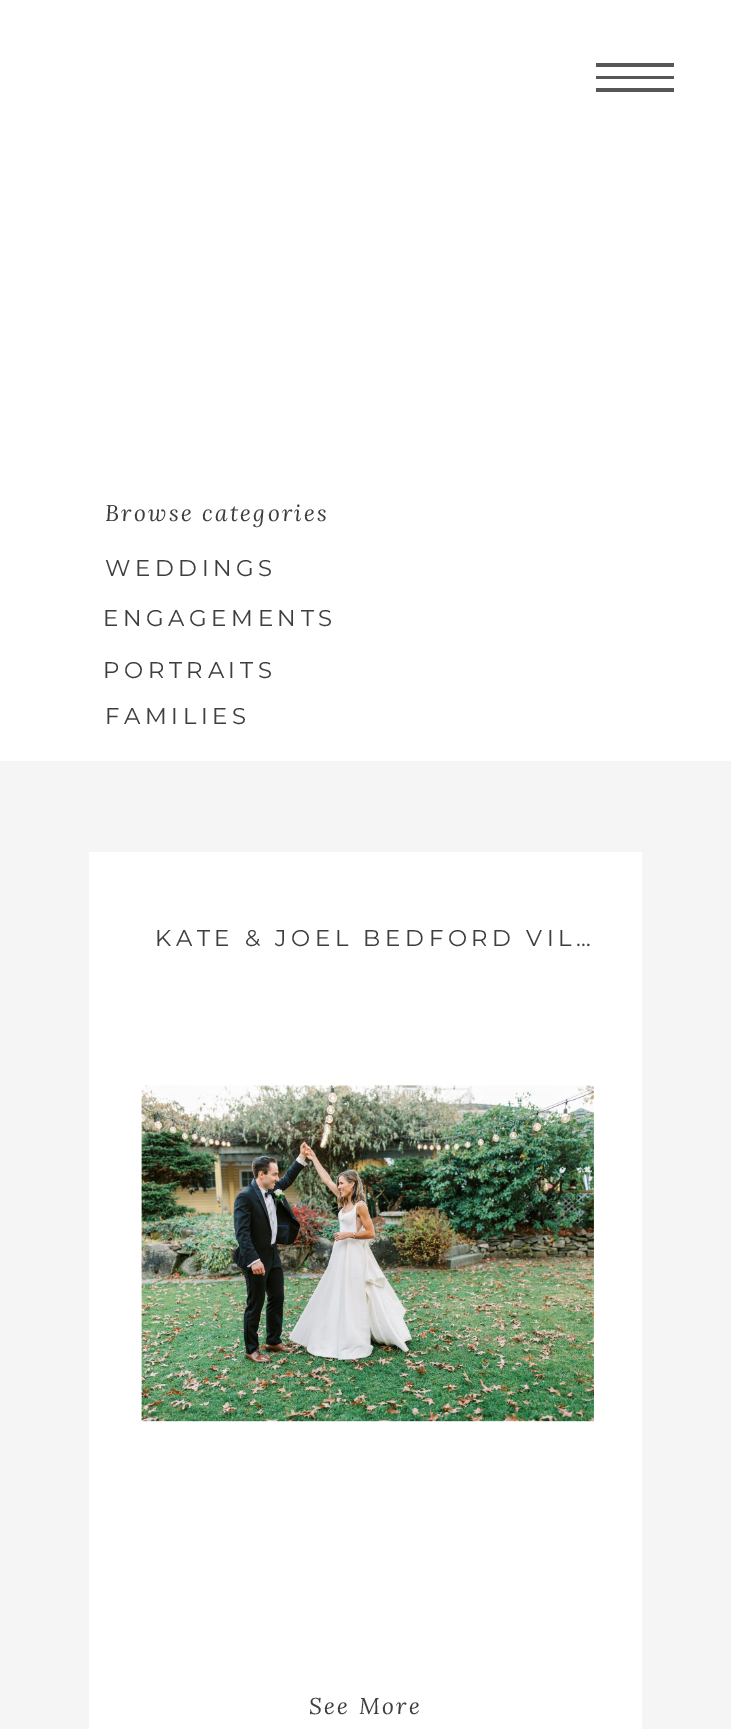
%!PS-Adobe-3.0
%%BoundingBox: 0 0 731 1729
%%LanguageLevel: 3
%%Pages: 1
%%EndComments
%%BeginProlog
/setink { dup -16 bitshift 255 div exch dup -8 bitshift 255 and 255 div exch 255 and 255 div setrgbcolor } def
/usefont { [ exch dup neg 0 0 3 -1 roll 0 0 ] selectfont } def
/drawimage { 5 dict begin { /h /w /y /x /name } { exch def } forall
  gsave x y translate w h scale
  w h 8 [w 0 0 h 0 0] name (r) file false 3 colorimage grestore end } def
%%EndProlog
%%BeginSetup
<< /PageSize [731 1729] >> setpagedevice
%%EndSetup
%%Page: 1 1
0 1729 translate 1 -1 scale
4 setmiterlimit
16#FFFFFF setink
0 0 731 1729 rectfill
16#575757 setink
596 88 moveto 674 88 lineto 674 92 lineto 596 92 lineto closepath 596 76 moveto 674 76 lineto 674 79 lineto 596 79 lineto closepath 596 63 moveto 674 63 lineto 674 67 lineto 596 67 lineto closepath fill
/Lora-Italic 22.8 usefont
16#3E3E3E setink
105 521 moveto 2.25 0 (Browse categories) ashow
/Montserrat-Thin 22.8 usefont
105 576 moveto 4.6 0 (WEDDINGS) ashow
103 626 moveto 4.6 0 (ENGAGEMENTS) ashow
103 678 moveto 4.6 0 (PORTRAITS) ashow
105 724 moveto 4.6 0 (FAMILIES) ashow
16#F5F5F5 setink
0 761 731 968 rectfill
16#FFFFFF setink
89 852 553 877 rectfill
16#3E3E3E setink
155 946 moveto 4.6 0 (KATE & JOEL BEDFORD VIL…) ashow
(img1.raw) 141 1085 453 337 drawimage
/Lora-Italic 22.8 usefont
309 1714 moveto 2.25 0 (See More) ashow
showpage
%%EOF
